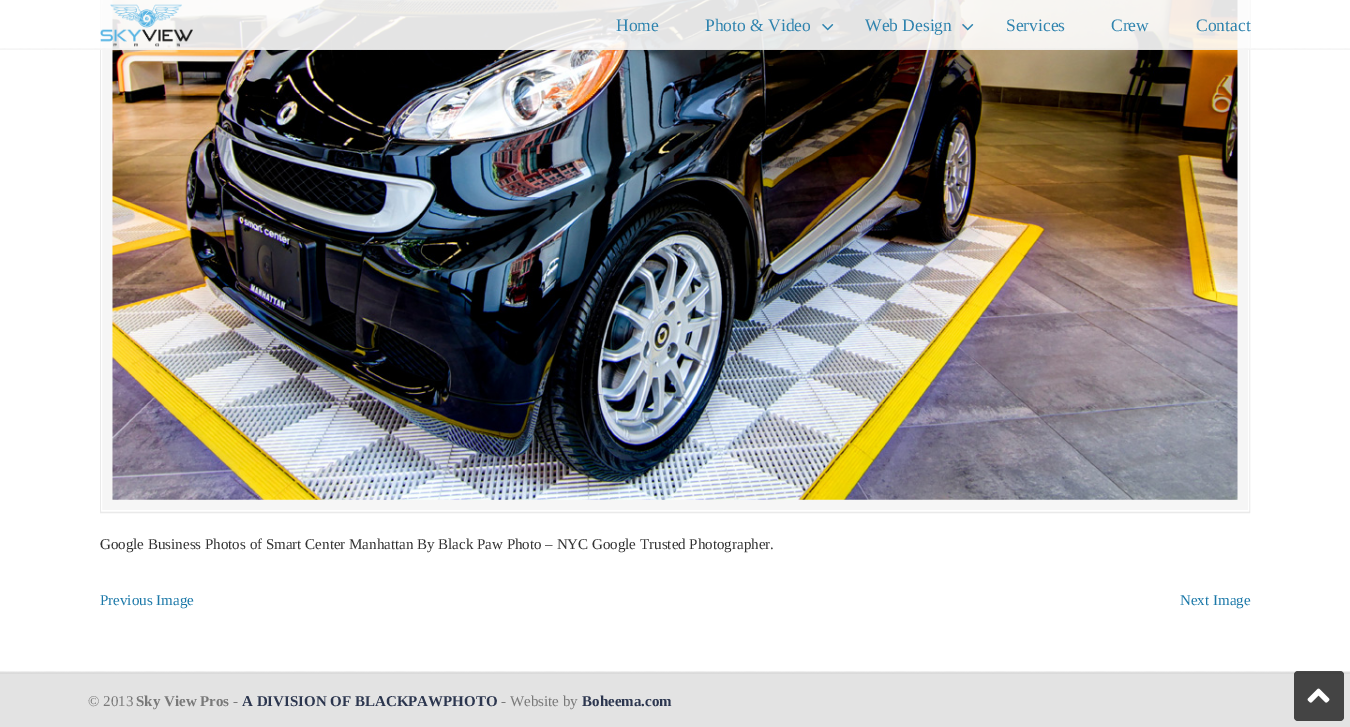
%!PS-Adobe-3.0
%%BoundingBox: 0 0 1350 727
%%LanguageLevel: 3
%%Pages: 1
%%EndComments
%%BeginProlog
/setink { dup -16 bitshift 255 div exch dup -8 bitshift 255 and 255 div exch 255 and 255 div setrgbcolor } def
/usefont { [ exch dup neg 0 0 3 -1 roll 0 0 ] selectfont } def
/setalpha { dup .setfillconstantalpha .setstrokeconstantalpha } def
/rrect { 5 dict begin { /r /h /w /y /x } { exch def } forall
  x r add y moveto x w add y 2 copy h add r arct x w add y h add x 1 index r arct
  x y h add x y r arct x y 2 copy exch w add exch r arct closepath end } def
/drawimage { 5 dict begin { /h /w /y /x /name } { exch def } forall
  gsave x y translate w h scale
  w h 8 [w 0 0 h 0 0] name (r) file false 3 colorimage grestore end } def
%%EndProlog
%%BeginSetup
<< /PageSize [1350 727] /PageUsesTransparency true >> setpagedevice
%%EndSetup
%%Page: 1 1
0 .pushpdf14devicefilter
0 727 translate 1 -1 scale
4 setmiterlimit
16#FFFFFF setink
0 0 1350 727 rectfill
16#F6F6F6 setink
100.5 -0.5 moveto 1249.5 -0.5 lineto 1249.5 512.5 lineto 100.5 512.5 lineto closepath gsave fill grestore
16#EAEAEA setink
stroke
16#FFFFFF setink
101.5 -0.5 1147 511 rectstroke
(img5.raw) 112 0 1126 500 drawimage
0.9 setalpha
16#FDFDFD setink
100 0 1150 50 rectfill
1 setalpha
(img1.raw) 100 4 93 43 drawimage
/LiberationSerif-Regular 17.5 usefont
16#2F83AE setink
616 31 moveto (Home) show
705 31 moveto (Photo & Video) show
(img2.raw) 822 24 12 7 drawimage
865 31 moveto (Web Design) show
(img3.raw) 962 24 12 7 drawimage
[
    [(Services) 1006 31]
    [(Crew) 1111 31]
    [(Contact) 1196 31]
] { aload pop moveto show } forall
(img4.raw) 0 48 1350 2 drawimage
/LiberationSerif-Regular 15 usefont
16#333333 setink
100 549 moveto (Google Business Photos of Smart Center Manhattan By Black Paw Photo – NYC Google Trusted Photographer.) show
16#1B78A8 setink
100 605 moveto (Previous Image) show
1180 605 moveto (Next Image) show
16#E3E3E3 setink
0 671 1350 56 rectfill
(img6.raw) 0 671 1350 3 drawimage
16#797979 setink
88 706 moveto (© 2013) show
/LiberationSerif-Bold 15 usefont
136 706 moveto (Sky View Pros) show
/LiberationSerif-Regular 15 usefont
233 706 moveto (-) show
/LiberationSerif-Bold 15 usefont
16#2C364F setink
242 706 moveto (A DIVISION OF BLACKPAWPHOTO) show
/LiberationSerif-Regular 15 usefont
16#797979 setink
501 706 moveto (- Website by) show
/LiberationSerif-Bold 15 usefont
16#2C364F setink
582 706 moveto (Boheema.com) show
0.7 setalpha
16#000000 setink
1294 671 50 50 4 rrect fill
1 setalpha
(img7.raw) 1307 688 23 15 drawimage
.poppdf14devicefilter showpage
%%EOF
